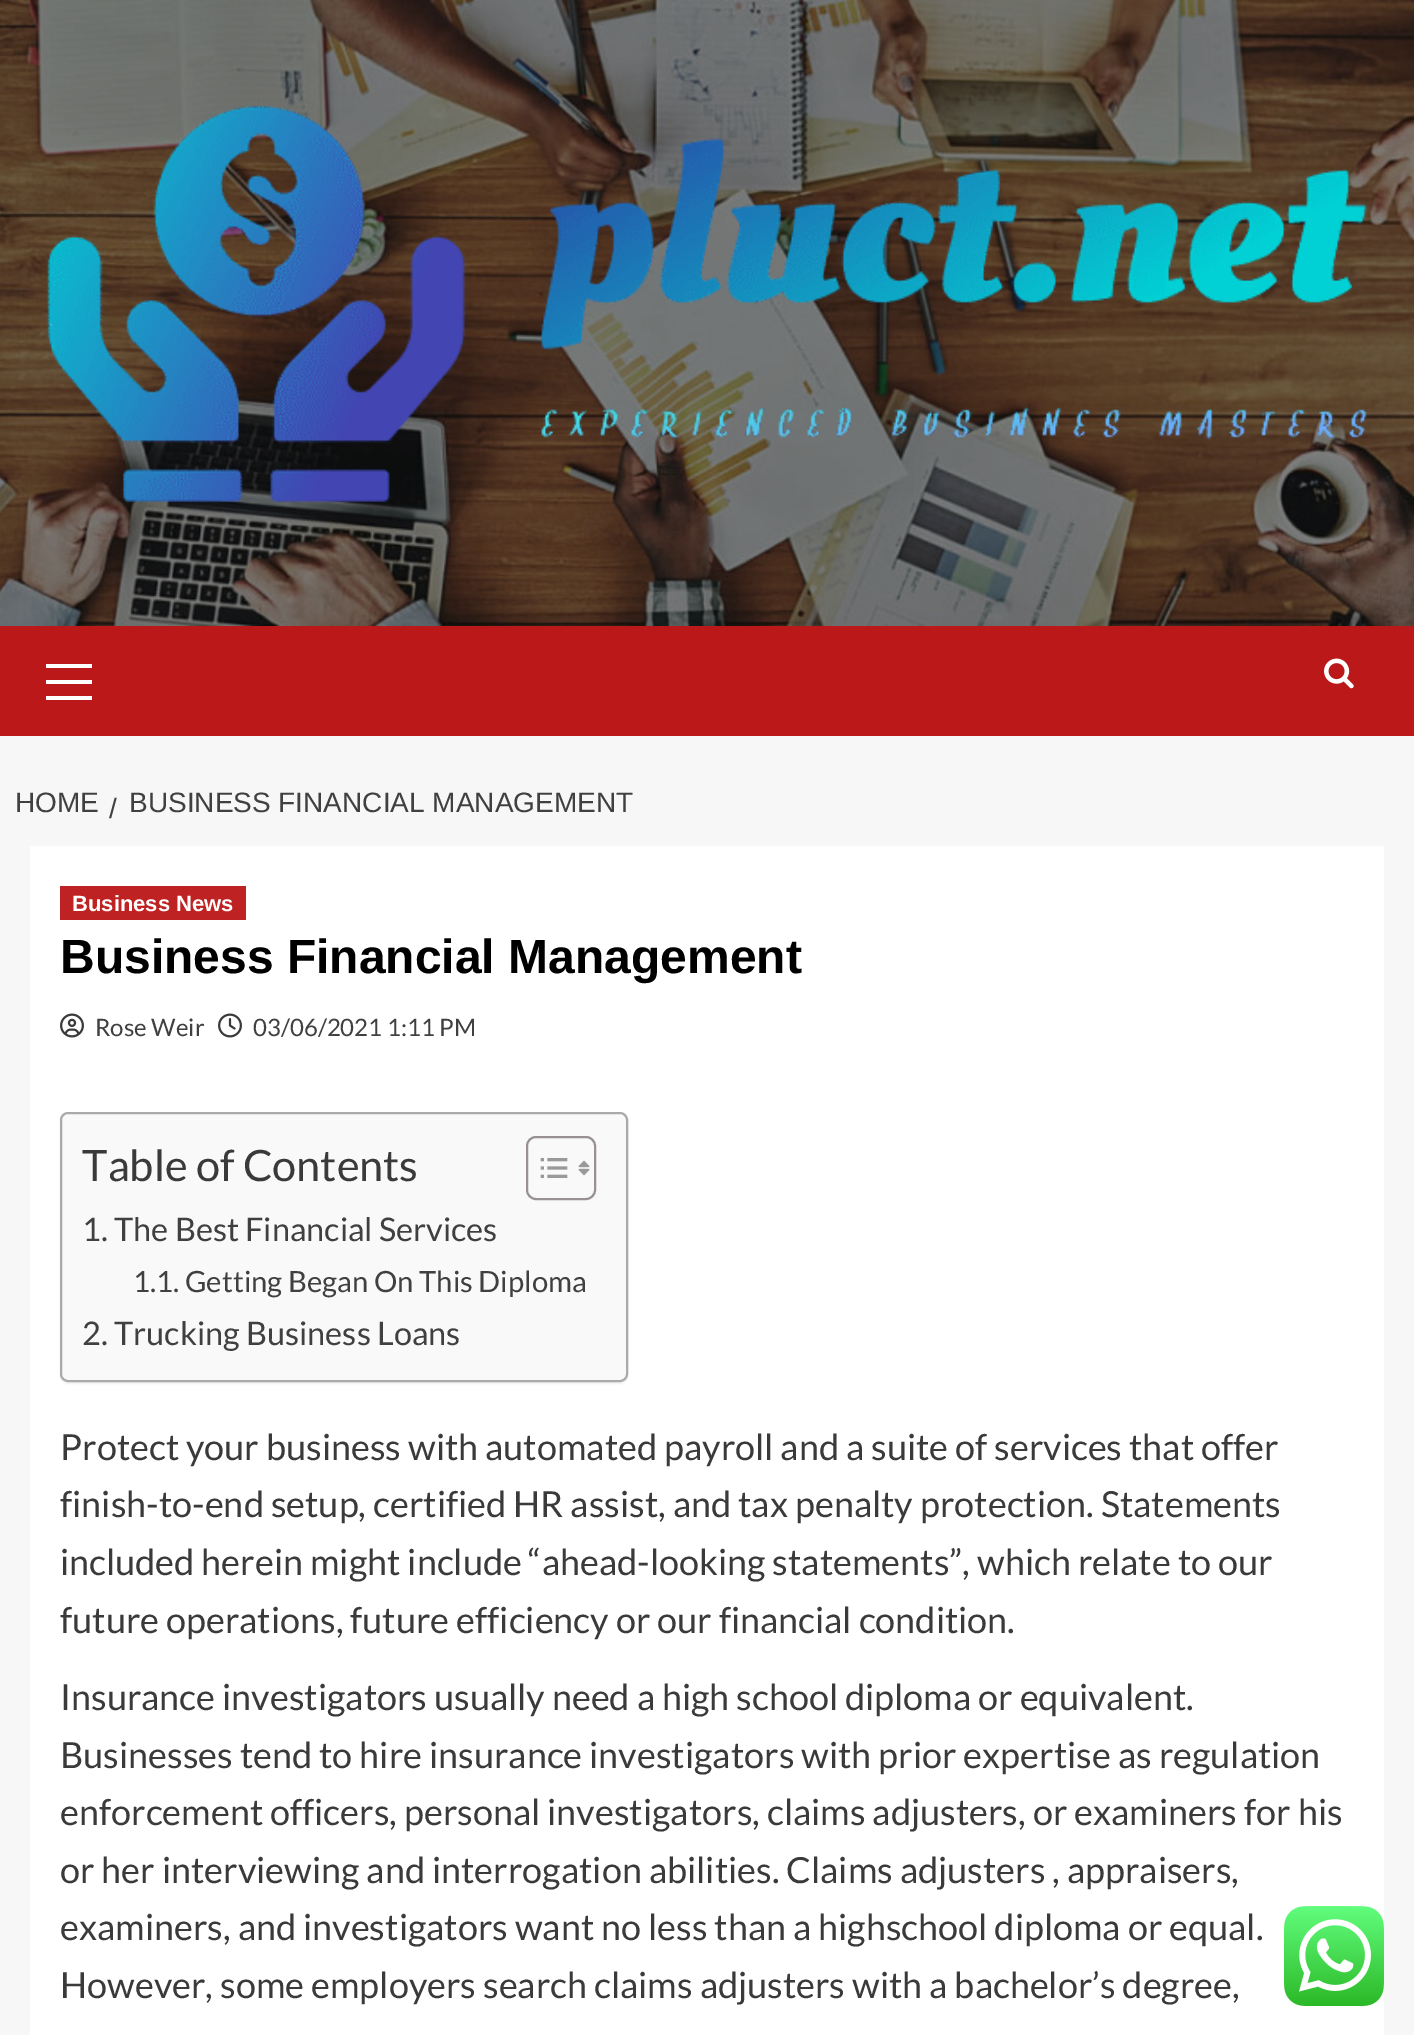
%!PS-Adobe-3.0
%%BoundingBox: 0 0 1414 2035
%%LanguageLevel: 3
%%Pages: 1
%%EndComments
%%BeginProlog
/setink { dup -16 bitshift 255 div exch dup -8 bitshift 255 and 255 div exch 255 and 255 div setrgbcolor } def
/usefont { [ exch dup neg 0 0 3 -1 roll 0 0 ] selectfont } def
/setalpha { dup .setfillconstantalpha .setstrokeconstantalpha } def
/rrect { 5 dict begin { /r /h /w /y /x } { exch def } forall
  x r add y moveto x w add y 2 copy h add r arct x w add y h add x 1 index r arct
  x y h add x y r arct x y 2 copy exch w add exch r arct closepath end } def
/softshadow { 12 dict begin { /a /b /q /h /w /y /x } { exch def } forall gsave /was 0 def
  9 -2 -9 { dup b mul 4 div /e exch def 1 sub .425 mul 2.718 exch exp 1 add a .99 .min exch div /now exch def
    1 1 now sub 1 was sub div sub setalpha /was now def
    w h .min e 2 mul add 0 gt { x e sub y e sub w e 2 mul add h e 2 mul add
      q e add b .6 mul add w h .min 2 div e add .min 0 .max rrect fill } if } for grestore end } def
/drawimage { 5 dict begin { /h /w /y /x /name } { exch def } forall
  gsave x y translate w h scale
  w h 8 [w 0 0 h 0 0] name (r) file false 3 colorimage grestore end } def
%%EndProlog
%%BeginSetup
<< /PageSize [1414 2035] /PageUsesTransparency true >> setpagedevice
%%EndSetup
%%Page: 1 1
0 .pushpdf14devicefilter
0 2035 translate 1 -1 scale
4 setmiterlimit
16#F7F7F7 setink
0 0 1414 2035 rectfill
(img1.raw) 0 0 1414 626 drawimage
(img2.raw) 47 105 1320 398 drawimage
[
    [0 626 1414 110 16#BB1919]
    [46 680 46 4 16#FFFFFF]
    [46 664 46 4 16#FFFFFF]
    [46 696 46 4 16#FFFFFF]
] { aload pop setink rectfill } forall
(img3.raw) 1324 658 30 31 drawimage
/LiberationSans-Regular 28 usefont
16#404040 setink
[
    [(HOME) 15 812]
    [(/) 109 818]
    [(BUSINESS FINANCIAL MANAGEMENT) 129 812]
] { aload pop moveto show } forall
16#FFFFFF setink
30 846 1354 1189 rectfill
16#BE2222 setink
60 886 186 34 rectfill
/LiberationSans-Bold 22 usefont
16#FFFFFF setink
72 911 moveto (Business News) show
/LiberationSans-Bold 48 usefont
16#000000 setink
60 973 moveto (Business Financial Management) show
(img4.raw) 60 1013 24 25 drawimage
/Lato-Regular 24 usefont
16#404040 setink
95 1036 moveto (Rose Weir) show
(img5.raw) 218 1013 24 25 drawimage
253 1036 moveto (03/06/2021 1:11 PM) show
16#000000 setink
60 1114 568 270 8 1 0.05 softshadow
16#F9F9F9 setink
61 1113 566 268 7 rrect gsave fill grestore
16#AAAAAA setink
2 setlinewidth
stroke
/Lato-Regular 43.25 usefont
16#3A3A3A setink
82 1181 moveto (Table of Contents) show
16#999191 setink
527 1137 68 62 9 rrect stroke
(img6.raw) 540 1158 28 20 drawimage
(img7.raw) 578 1160 12 16 drawimage
/Lato-Regular 32.5 usefont
16#404040 setink
82 1241 moveto (1. The Best Financial Services) show
/Lato-Regular 29.25 usefont
133 1292 moveto (1.1. Getting Began On This Diploma) show
/Lato-Regular 32.5 usefont
82 1345 moveto (2. Trucking Business Loans) show
/Lato-Regular 36 usefont
16#3A3A3A setink
[
    [(Protect your business with automated payroll and a suite of services that offer) 60 1460]
    [(finish-to-end setup, certified HR assist, and tax penalty protection. Statements) 60 1517]
    [(included herein might include “ahead-looking statements”, which relate to our) 60 1575]
    [(future operations, future efficiency or our financial condition.) 60 1633]
    [(Insurance investigators usually need a high school diploma or equivalent.) 60 1710]
    [(Businesses tend to hire insurance investigators with prior expertise as regulation) 60 1768]
    [(enforcement officers, personal investigators, claims adjusters, or examiners for his) 60 1825]
    [(or her interviewing and interrogation abilities. Claims adjusters , appraisers,) 60 1883]
    [(examiners, and investigators want no less than a highschool diploma or equal.) 60 1940]
    [(However, some employers search claims adjusters with a bachelor’s degree,) 60 1998]
] { aload pop moveto show } forall
(img8.raw) 1284 1906 100 100 drawimage
.poppdf14devicefilter showpage
%%EOF
